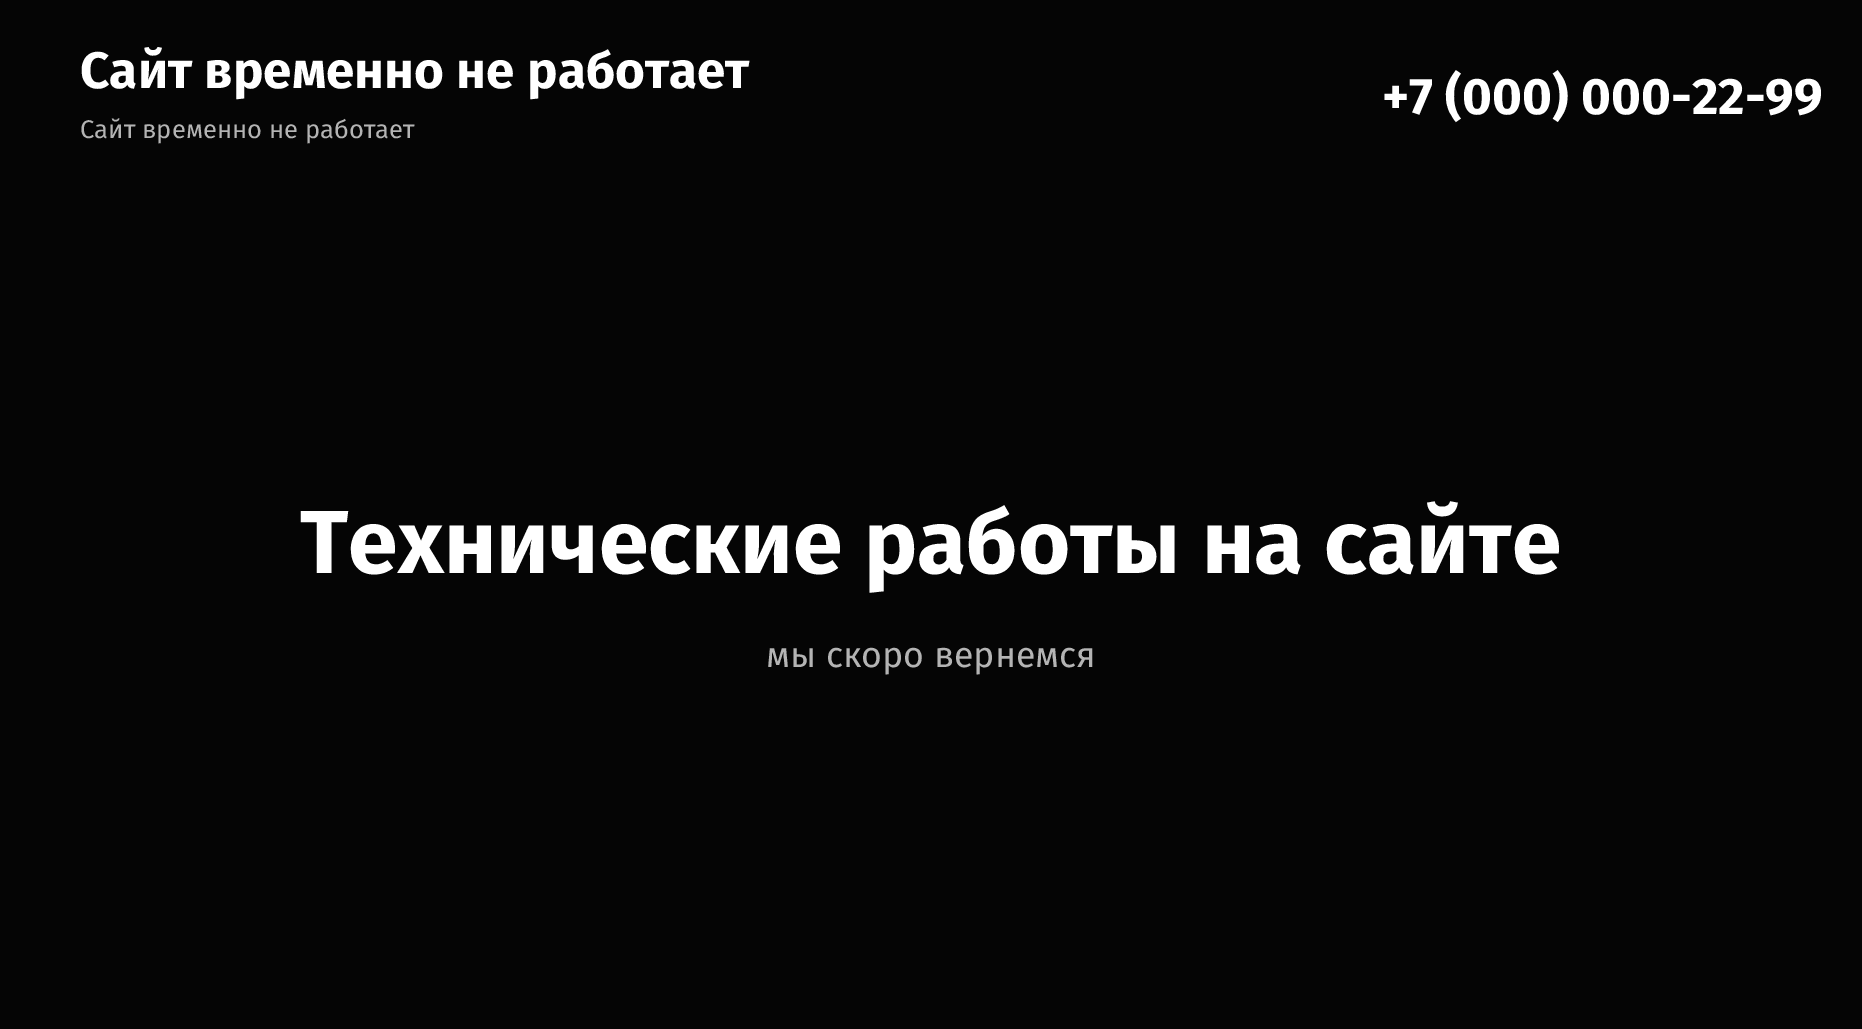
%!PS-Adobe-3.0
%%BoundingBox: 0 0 1862 1029
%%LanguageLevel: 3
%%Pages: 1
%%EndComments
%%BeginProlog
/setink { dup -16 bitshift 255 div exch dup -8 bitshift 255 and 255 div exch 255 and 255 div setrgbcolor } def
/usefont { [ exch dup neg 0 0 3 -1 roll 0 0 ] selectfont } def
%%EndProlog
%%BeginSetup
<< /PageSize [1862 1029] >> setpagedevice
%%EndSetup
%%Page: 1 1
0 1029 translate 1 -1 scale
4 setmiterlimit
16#050505 setink
0 0 1862 1029 rectfill
/FiraSans-Bold 51.25 usefont
16#FFFFFF setink
80 88 moveto (Сайт временно не работает) show
/FiraSans-Regular 25.6 usefont
16#B4B4B4 setink
80 138 moveto (Сайт временно не работает) show
/FiraSans-Bold 51.25 usefont
16#FFFFFF setink
1382 114 moveto (+7 \(000\) 000-22-99) show
/FiraSans-Bold 89.6 usefont
300 573 moveto (Технические работы на сайте) show
/FiraSans-Regular 35.75 usefont
16#B4B4B4 setink
766 667 moveto (мы скоро вернемся) show
showpage
%%EOF
